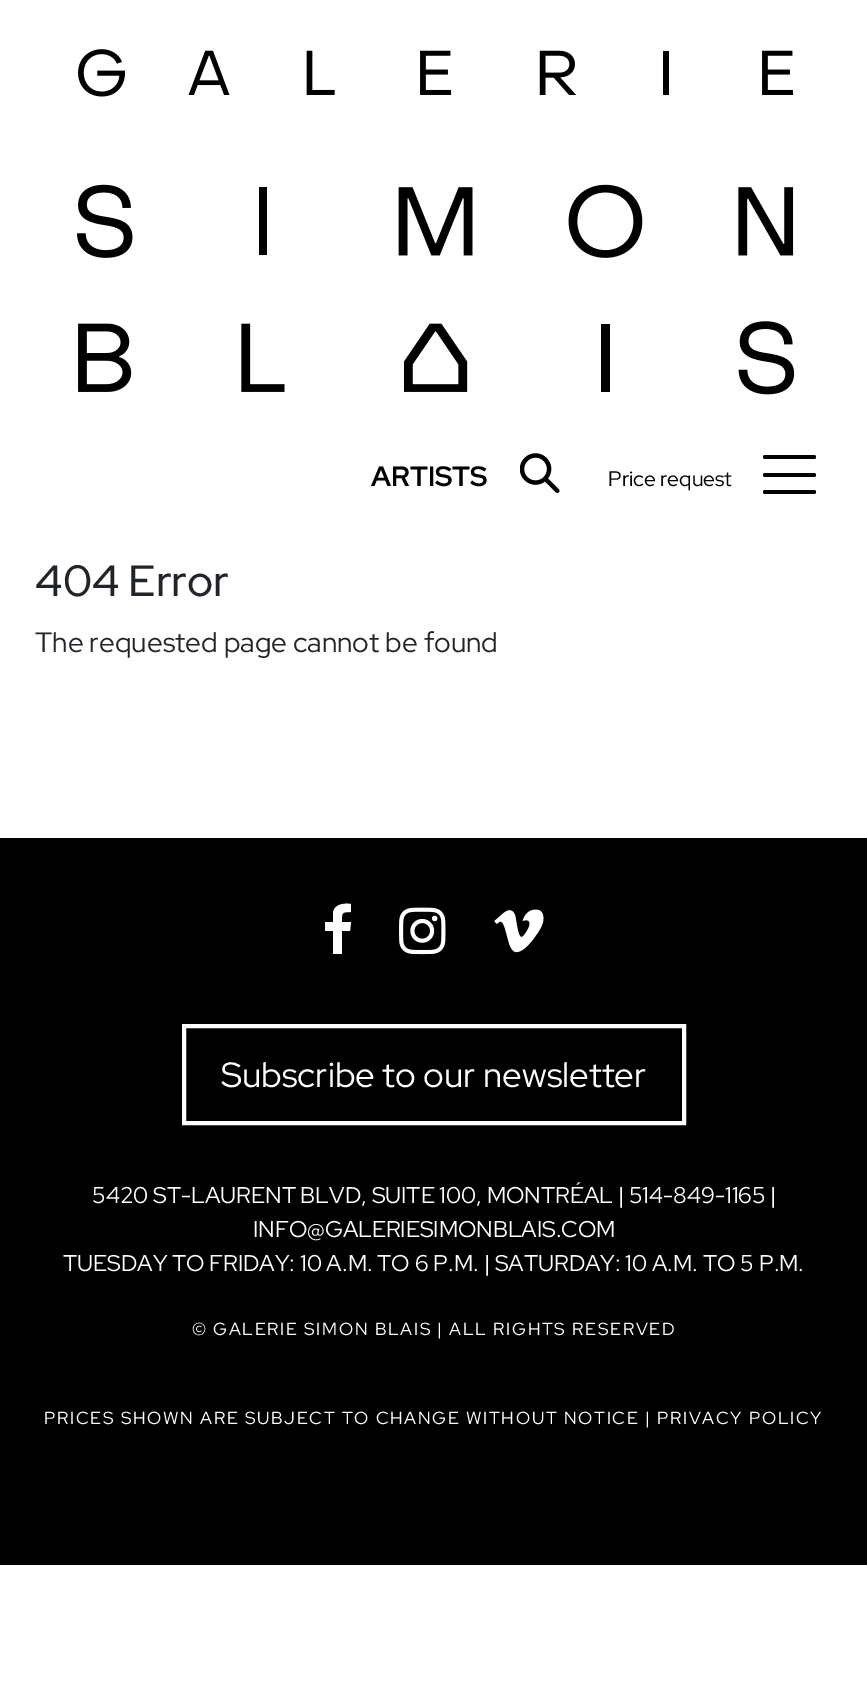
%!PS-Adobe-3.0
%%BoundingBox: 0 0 867 1688
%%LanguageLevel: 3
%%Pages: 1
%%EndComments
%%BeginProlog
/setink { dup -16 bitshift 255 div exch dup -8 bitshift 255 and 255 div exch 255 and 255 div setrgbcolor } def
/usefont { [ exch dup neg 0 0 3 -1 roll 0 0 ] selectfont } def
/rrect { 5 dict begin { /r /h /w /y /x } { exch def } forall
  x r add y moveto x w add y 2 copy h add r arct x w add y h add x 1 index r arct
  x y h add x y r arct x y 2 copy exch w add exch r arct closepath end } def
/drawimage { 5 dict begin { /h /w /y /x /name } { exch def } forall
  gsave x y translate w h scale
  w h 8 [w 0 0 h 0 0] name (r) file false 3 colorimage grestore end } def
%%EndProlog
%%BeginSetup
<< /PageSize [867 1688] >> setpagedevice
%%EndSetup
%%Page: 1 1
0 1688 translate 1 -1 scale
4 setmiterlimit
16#FFFFFF setink
0 0 867 1688 rectfill
(img1.raw) 77 49 718 346 drawimage
/RedHatDisplay-Bold 28 usefont
16#000000 setink
371 486 moveto (ARTISTS) show
(img2.raw) 520 453 40 40 drawimage
/RedHatDisplay-Regular 21 usefont
608 486 moveto (Price request) show
763 490 53 4 2 rrect fill
763 455 53 4 2 rrect fill
763 473 53 4 2 rrect fill
/RedHatDisplay-Medium 43.75 usefont
16#212529 setink
35 596 moveto (404 Error) show
/RedHatDisplay-Regular 28 usefont
35 652 moveto (The requested page cannot be found) show
16#000000 setink
0 838 867 727 rectfill
16#FFFFFF setink
351 904 moveto 351 912 lineto 341 912 342 913 342 922 curveto 351 922 lineto 350 931 lineto 342 931 lineto 342 954 lineto 333 954 lineto 333 931 lineto 325 931 lineto 325 922 lineto 333 922 lineto 333 913 lineto 334 904 344 903 351 904 curveto closepath fill
(img3.raw) 399 907 47 48 drawimage
(img4.raw) 494 909 50 44 drawimage
4 setlinewidth
184 1026 500 97 rectstroke
/RedHatDisplay-Regular 35 usefont
221 1087 moveto (Subscribe to our newsletter) show
/RedHatDisplay-Regular 22.75 usefont
[
    [(5420 ST-LAURENT BLVD, SUITE 100, MONTRÉAL | 514-849-1165 |) 92 1203]
    [(INFO@GALERIESIMONBLAIS.COM) 253 1237]
    [(TUESDAY TO FRIDAY: 10 A.M. TO 6 P.M. | SATURDAY: 10 A.M. TO 5 P.M.) 63 1271]
] { aload pop moveto show } forall
/RedHatDisplay-Regular 17.5 usefont
192 1335 moveto 1.75 0 (© GALERIE SIMON BLAIS | ALL RIGHTS RESERVED) ashow
44 1424 moveto 1.75 0 (PRICES SHOWN ARE SUBJECT TO CHANGE WITHOUT NOTICE | PRIVACY POLICY) ashow
showpage
%%EOF
